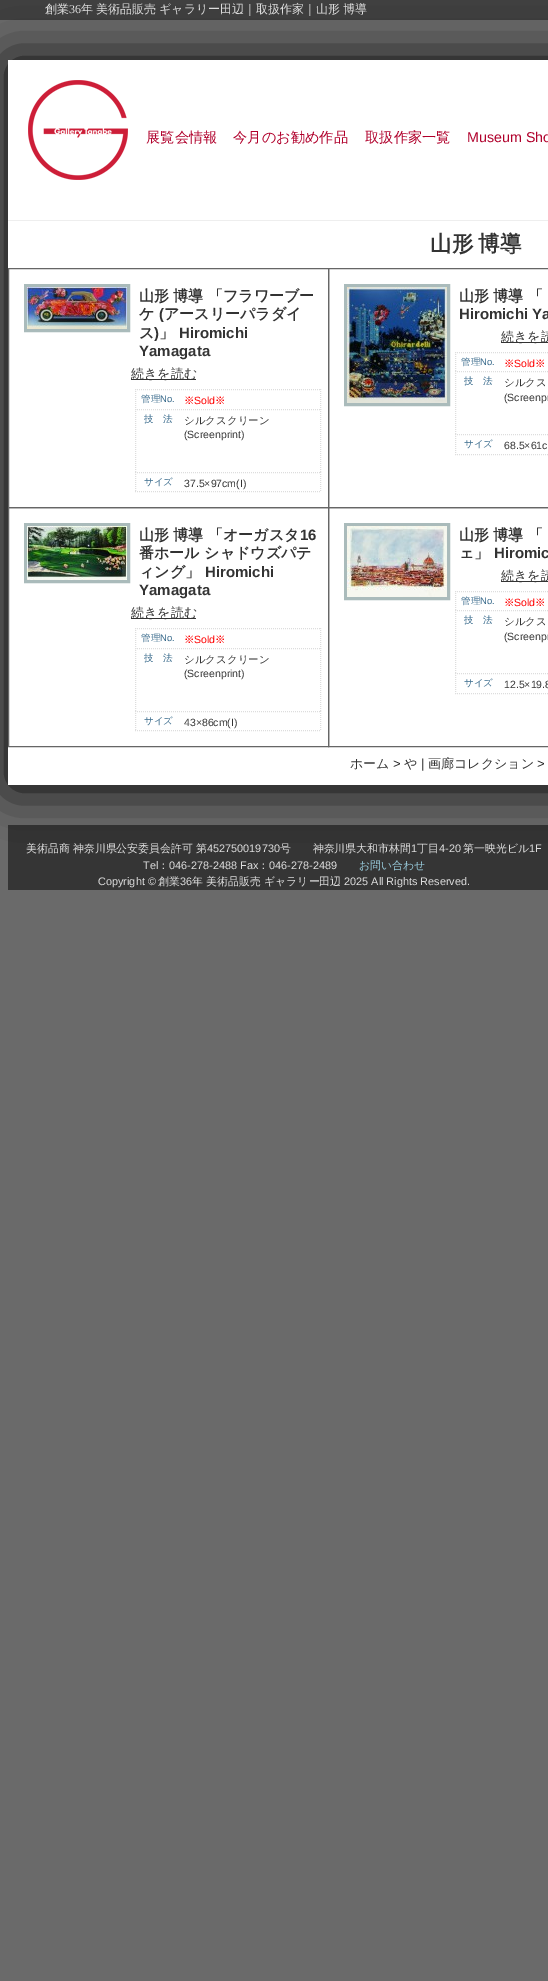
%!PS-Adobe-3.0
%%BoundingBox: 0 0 548 1981
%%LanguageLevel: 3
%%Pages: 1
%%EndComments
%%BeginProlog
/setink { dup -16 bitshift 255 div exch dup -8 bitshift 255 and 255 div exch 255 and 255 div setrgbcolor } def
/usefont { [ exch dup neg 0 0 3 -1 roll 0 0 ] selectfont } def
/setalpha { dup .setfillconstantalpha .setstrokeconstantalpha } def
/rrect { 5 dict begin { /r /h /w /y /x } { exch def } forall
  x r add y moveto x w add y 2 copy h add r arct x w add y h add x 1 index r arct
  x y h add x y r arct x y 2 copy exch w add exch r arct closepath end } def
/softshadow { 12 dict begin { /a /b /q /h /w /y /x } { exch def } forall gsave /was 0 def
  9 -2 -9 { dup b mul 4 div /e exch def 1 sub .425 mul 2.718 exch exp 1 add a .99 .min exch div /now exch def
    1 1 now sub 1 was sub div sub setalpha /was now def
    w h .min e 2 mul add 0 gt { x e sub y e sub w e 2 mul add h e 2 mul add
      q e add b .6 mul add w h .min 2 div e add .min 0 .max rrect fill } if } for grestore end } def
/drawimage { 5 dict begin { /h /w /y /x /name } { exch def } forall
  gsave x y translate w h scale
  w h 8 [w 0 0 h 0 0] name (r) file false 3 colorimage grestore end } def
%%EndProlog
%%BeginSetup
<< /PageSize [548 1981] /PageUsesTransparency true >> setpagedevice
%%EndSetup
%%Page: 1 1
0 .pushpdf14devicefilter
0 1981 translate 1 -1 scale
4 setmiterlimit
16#6A6A6A setink
0 0 548 1981 rectfill
16#353535 setink
8 825 540 65 rectfill
16#000000 setink
10 62 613 725 0 25 1 softshadow
0.4 setalpha
0 0 548 20 rectfill
/WenQuanYiZenHei-Medium 12 usefont
1 setalpha
16#DDDDDD setink
45 13 moveto (創業) show
/LiberationSerif-Regular 12 usefont
69 13 moveto (36) show
/WenQuanYiZenHei-Medium 12 usefont
81 13 moveto -0.5 0 32 (年 美術品販売 ギャラリー田辺｜取扱作家｜山形 博導) widthshow
16#FFFFFF setink
8 60 540 725 rectfill
(img1.raw) 28 80 100 100 drawimage
/WenQuanYiZenHei-Medium 14.25 usefont
16#B0002B setink
[
    [(展覧会情報) 146 142]
    [(今月のお勧め作品) 233 142]
    [(取扱作家一覧) 365 142]
] { aload pop moveto show } forall
/LiberationSans-Regular 14.25 usefont
467 142 moveto (Museum Sho) show
16#EEEEEE setink
8 220 540 1 rectfill
/WenQuanYiZenHei-Bold 21.5 usefont
16#333333 setink
430 251 moveto -1 0 32 (山形 博導) widthshow
16#666666 setink
8.5 268.5 320 239 rectstroke
16#AABBBB setink
3 setlinewidth
25.5 285.5 103 45 rectstroke
(img2.raw) 27 287 100 42 drawimage
/WenQuanYiZenHei-Bold 15 usefont
16#333333 setink
139 301 moveto (山形 博導 「フラワーブー) show
139 319 moveto (ケ) show
/LiberationSans-Bold 15 usefont
159 319 moveto (\() show
/WenQuanYiZenHei-Bold 15 usefont
164 319 moveto (アースリーパラダイ) show
139 338 moveto (ス) show
/LiberationSans-Bold 15 usefont
154 338 moveto (\)) show
/WenQuanYiZenHei-Bold 15 usefont
159 338 moveto (」) show
/LiberationSans-Bold 15 usefont
179 338 moveto (Hiromichi) show
139 356 moveto (Yamagata) show
131 379 65 1 rectfill
/WenQuanYiZenHei-Medium 13 usefont
131 378 moveto (続きを読む) show
16#DDDDDD setink
1 setlinewidth
[1 1] 0 setdash
135 389.5 moveto 321 389.5 lineto stroke
320.5 389 moveto 320.5 410 lineto stroke
135 409.5 moveto 321 409.5 lineto stroke
135.5 389 moveto 135.5 410 lineto stroke
/WenQuanYiZenHei-Medium 9.5 usefont
16#336688 setink
141 402 moveto (管理) show
/LiberationSans-Regular 9.5 usefont
160 402 moveto (No.) show
/WenQuanYiZenHei-Medium 10.5 usefont
16#FF0000 setink
184 404 moveto (※) show
/LiberationSans-Regular 10.5 usefont
194 404 moveto (Sold) show
/WenQuanYiZenHei-Medium 10.5 usefont
215 404 moveto (※) show
16#DDDDDD setink
320.5 409 moveto 320.5 473 lineto stroke
135 472.5 moveto 321 472.5 lineto stroke
135.5 409 moveto 135.5 473 lineto stroke
/WenQuanYiZenHei-Medium 9.5 usefont
16#336688 setink
144 422 moveto (技　法) show
/WenQuanYiZenHei-Medium 10.5 usefont
16#333333 setink
184 424 moveto (シルクスクリーン) show
/LiberationSans-Regular 10.5 usefont
184 438 moveto (\(Screenprint\)) show
16#DDDDDD setink
320.5 472 moveto 320.5 492 lineto stroke
135 491.5 moveto 321 491.5 lineto stroke
135.5 472 moveto 135.5 492 lineto stroke
/WenQuanYiZenHei-Medium 9.5 usefont
16#336688 setink
144 485 moveto (サイズ) show
/LiberationSans-Regular 10.5 usefont
16#333333 setink
184 487 moveto (37.5×97cm\(I\)) show
16#666666 setink
[] 0 setdash
328.5 268.5 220 239 rectstroke
16#AABBBB setink
3 setlinewidth
345.5 285.5 103 119 rectstroke
(img3.raw) 347 287 100 116 drawimage
/WenQuanYiZenHei-Bold 15 usefont
16#333333 setink
459 301 moveto (山形 博導 「) show
/LiberationSans-Bold 15 usefont
459 319 moveto (Hiromichi Ya) show
501 342 47 1 rectfill
/WenQuanYiZenHei-Medium 13 usefont
501 341 moveto (続きを読) show
16#DDDDDD setink
1 setlinewidth
[1 1] 0 setdash
455 352.5 moveto 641 352.5 lineto stroke
455 371.5 moveto 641 371.5 lineto stroke
455.5 352 moveto 455.5 372 lineto stroke
/WenQuanYiZenHei-Medium 9.5 usefont
16#336688 setink
461 365 moveto (管理) show
/LiberationSans-Regular 9.5 usefont
480 365 moveto (No.) show
/WenQuanYiZenHei-Medium 10.5 usefont
16#FF0000 setink
504 367 moveto (※) show
/LiberationSans-Regular 10.5 usefont
514 367 moveto (Sold) show
/WenQuanYiZenHei-Medium 10.5 usefont
535 367 moveto (※) show
16#DDDDDD setink
455 434.5 moveto 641 434.5 lineto stroke
455.5 371 moveto 455.5 435 lineto stroke
/WenQuanYiZenHei-Medium 9.5 usefont
16#336688 setink
464 384 moveto (技　法) show
/WenQuanYiZenHei-Medium 10.5 usefont
16#333333 setink
504 386 moveto (シルクス) show
/LiberationSans-Regular 10.5 usefont
504 401 moveto (\(Screenpr) show
16#DDDDDD setink
455 454.5 moveto 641 454.5 lineto stroke
455.5 434 moveto 455.5 455 lineto stroke
/WenQuanYiZenHei-Medium 9.5 usefont
16#336688 setink
464 447 moveto (サイズ) show
/LiberationSans-Regular 10.5 usefont
16#333333 setink
504 449 moveto (68.5×61c) show
16#666666 setink
[] 0 setdash
8.5 507.5 320 239 rectstroke
16#AABBBB setink
3 setlinewidth
25.5 524.5 103 57 rectstroke
(img4.raw) 27 526 100 54 drawimage
/WenQuanYiZenHei-Bold 15 usefont
16#333333 setink
139 540 moveto (山形 博導 「オーガスタ) show
/LiberationSans-Bold 15 usefont
300 540 moveto (16) show
/WenQuanYiZenHei-Bold 15 usefont
139 558 moveto (番ホール シャドウズパテ) show
139 577 moveto (ィング」) show
/LiberationSans-Bold 15 usefont
205 577 moveto (Hiromichi) show
139 595 moveto (Yamagata) show
131 618 65 1 rectfill
/WenQuanYiZenHei-Medium 13 usefont
131 617 moveto (続きを読む) show
16#DDDDDD setink
1 setlinewidth
[1 1] 0 setdash
135 628.5 moveto 321 628.5 lineto stroke
320.5 628 moveto 320.5 649 lineto stroke
135 648.5 moveto 321 648.5 lineto stroke
135.5 628 moveto 135.5 649 lineto stroke
/WenQuanYiZenHei-Medium 9.5 usefont
16#336688 setink
141 641 moveto (管理) show
/LiberationSans-Regular 9.5 usefont
160 641 moveto (No.) show
/WenQuanYiZenHei-Medium 10.5 usefont
16#FF0000 setink
184 643 moveto (※) show
/LiberationSans-Regular 10.5 usefont
194 643 moveto (Sold) show
/WenQuanYiZenHei-Medium 10.5 usefont
215 643 moveto (※) show
16#DDDDDD setink
320.5 648 moveto 320.5 712 lineto stroke
135 711.5 moveto 321 711.5 lineto stroke
135.5 648 moveto 135.5 712 lineto stroke
/WenQuanYiZenHei-Medium 9.5 usefont
16#336688 setink
144 661 moveto (技　法) show
/WenQuanYiZenHei-Medium 10.5 usefont
16#333333 setink
184 663 moveto (シルクスクリーン) show
/LiberationSans-Regular 10.5 usefont
184 677 moveto (\(Screenprint\)) show
16#DDDDDD setink
320.5 711 moveto 320.5 731 lineto stroke
135 730.5 moveto 321 730.5 lineto stroke
135.5 711 moveto 135.5 731 lineto stroke
/WenQuanYiZenHei-Medium 9.5 usefont
16#336688 setink
144 724 moveto (サイズ) show
/LiberationSans-Regular 10.5 usefont
16#333333 setink
184 726 moveto (43×86cm\(I\)) show
16#666666 setink
[] 0 setdash
328.5 507.5 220 239 rectstroke
16#AABBBB setink
3 setlinewidth
345.5 524.5 103 74 rectstroke
(img5.raw) 347 526 100 71 drawimage
/WenQuanYiZenHei-Bold 15 usefont
16#333333 setink
459 540 moveto (山形 博導 「) show
459 558 moveto (ェ」) show
/LiberationSans-Bold 15 usefont
494 558 moveto (Hiromic) show
501 581 47 1 rectfill
/WenQuanYiZenHei-Medium 13 usefont
501 580 moveto (続きを読) show
16#DDDDDD setink
1 setlinewidth
[1 1] 0 setdash
455 591.5 moveto 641 591.5 lineto stroke
455 610.5 moveto 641 610.5 lineto stroke
455.5 591 moveto 455.5 611 lineto stroke
/WenQuanYiZenHei-Medium 9.5 usefont
16#336688 setink
461 604 moveto (管理) show
/LiberationSans-Regular 9.5 usefont
480 604 moveto (No.) show
/WenQuanYiZenHei-Medium 10.5 usefont
16#FF0000 setink
504 606 moveto (※) show
/LiberationSans-Regular 10.5 usefont
514 606 moveto (Sold) show
/WenQuanYiZenHei-Medium 10.5 usefont
535 606 moveto (※) show
16#DDDDDD setink
455 673.5 moveto 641 673.5 lineto stroke
455.5 610 moveto 455.5 674 lineto stroke
/WenQuanYiZenHei-Medium 9.5 usefont
16#336688 setink
464 623 moveto (技　法) show
/WenQuanYiZenHei-Medium 10.5 usefont
16#333333 setink
504 625 moveto (シルクス) show
/LiberationSans-Regular 10.5 usefont
504 640 moveto (\(Screenpr) show
16#DDDDDD setink
455 693.5 moveto 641 693.5 lineto stroke
455.5 673 moveto 455.5 694 lineto stroke
/WenQuanYiZenHei-Medium 9.5 usefont
16#336688 setink
464 686 moveto (サイズ) show
/LiberationSans-Regular 10.5 usefont
16#333333 setink
504 688 moveto (12.5×19.8) show
/WenQuanYiZenHei-Medium 13 usefont
350 768 moveto (ホーム) show
/LiberationSans-Regular 13 usefont
16#222222 setink
393 768 moveto (>) show
/WenQuanYiZenHei-Medium 13 usefont
16#333333 setink
404 768 moveto (や) show
/LiberationSans-Regular 13 usefont
16#222222 setink
421 768 moveto (|) show
/WenQuanYiZenHei-Medium 13 usefont
16#333333 setink
428 768 moveto (画廊コレクション) show
/LiberationSans-Regular 13 usefont
16#222222 setink
537 768 moveto (>) show
/WenQuanYiZenHei-Medium 10.9 usefont
16#DDDDDD setink
26 852 moveto (美術品商 神奈川県公安委員会許可 第) show
/LiberationSans-Regular 10.9 usefont
207 852 moveto (452750019730) show
/WenQuanYiZenHei-Medium 10.9 usefont
280 852 moveto (号　　神奈川県大和市林間) show
/LiberationSans-Regular 10.9 usefont
411 852 moveto (1) show
/WenQuanYiZenHei-Medium 10.9 usefont
417 852 moveto (丁目) show
/LiberationSans-Regular 10.9 usefont
439 852 moveto (4-20) show
/WenQuanYiZenHei-Medium 10.9 usefont
463 852 moveto (第一映光ビル) show
/LiberationSans-Regular 10.9 usefont
529 852 moveto (1F) show
143 869 moveto (Tel) show
/WenQuanYiZenHei-Medium 10.9 usefont
158 869 moveto (：) show
/LiberationSans-Regular 10.9 usefont
169 869 moveto (046-278-2488 Fax) show
/WenQuanYiZenHei-Medium 10.9 usefont
258 869 moveto (：) show
/LiberationSans-Regular 10.9 usefont
269 869 moveto (046-278-2489) show
/WenQuanYiZenHei-Medium 10.9 usefont
16#99CCDD setink
359 869 moveto (お問い合わせ) show
/LiberationSans-Regular 10.9 usefont
16#DDDDDD setink
98 885 moveto (Copyright ©) show
/WenQuanYiZenHei-Medium 10.9 usefont
158 885 moveto (創業) show
/LiberationSans-Regular 10.9 usefont
180 885 moveto (36) show
/WenQuanYiZenHei-Medium 10.9 usefont
192 885 moveto (年 美術品販売 ギャラリー田辺) show
/LiberationSans-Regular 10.9 usefont
344 885 moveto (2025 All Rights Reserved.) show
.poppdf14devicefilter showpage
%%EOF
